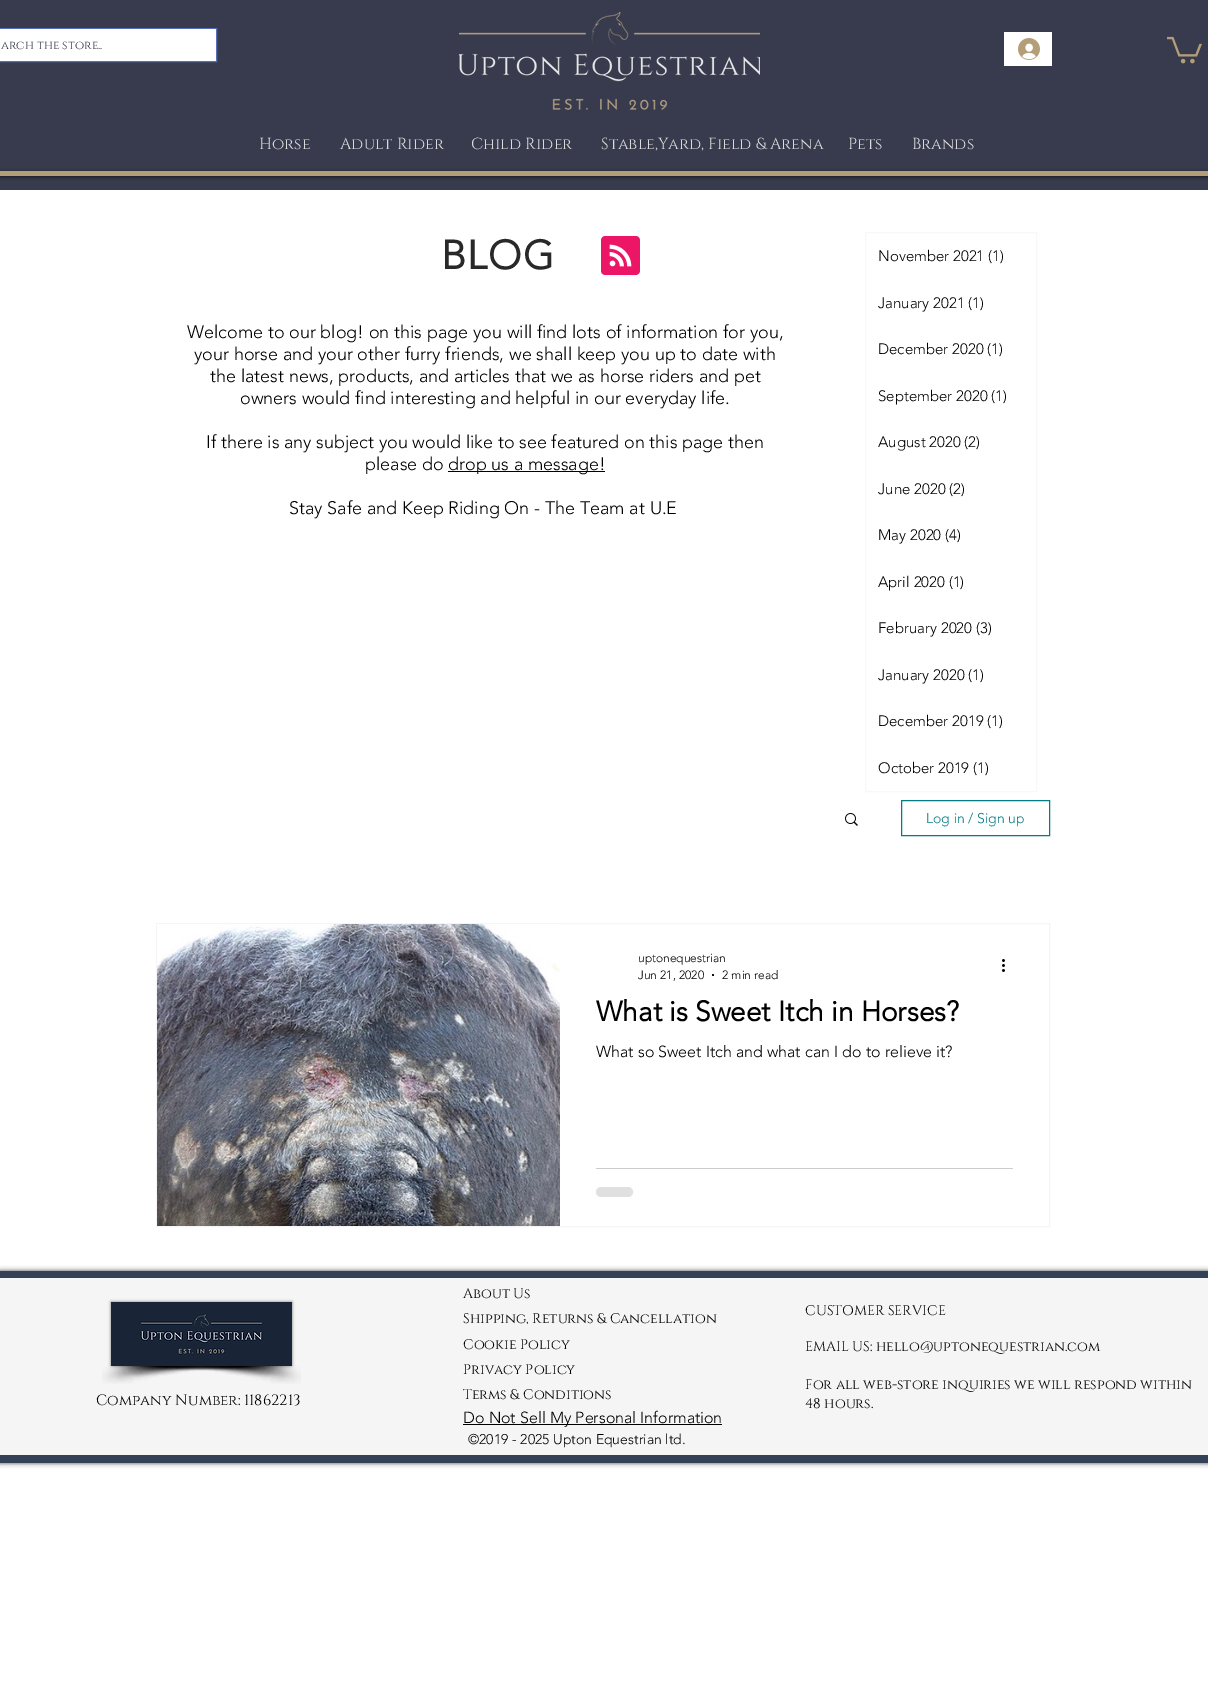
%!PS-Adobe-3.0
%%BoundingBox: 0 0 1208 1685
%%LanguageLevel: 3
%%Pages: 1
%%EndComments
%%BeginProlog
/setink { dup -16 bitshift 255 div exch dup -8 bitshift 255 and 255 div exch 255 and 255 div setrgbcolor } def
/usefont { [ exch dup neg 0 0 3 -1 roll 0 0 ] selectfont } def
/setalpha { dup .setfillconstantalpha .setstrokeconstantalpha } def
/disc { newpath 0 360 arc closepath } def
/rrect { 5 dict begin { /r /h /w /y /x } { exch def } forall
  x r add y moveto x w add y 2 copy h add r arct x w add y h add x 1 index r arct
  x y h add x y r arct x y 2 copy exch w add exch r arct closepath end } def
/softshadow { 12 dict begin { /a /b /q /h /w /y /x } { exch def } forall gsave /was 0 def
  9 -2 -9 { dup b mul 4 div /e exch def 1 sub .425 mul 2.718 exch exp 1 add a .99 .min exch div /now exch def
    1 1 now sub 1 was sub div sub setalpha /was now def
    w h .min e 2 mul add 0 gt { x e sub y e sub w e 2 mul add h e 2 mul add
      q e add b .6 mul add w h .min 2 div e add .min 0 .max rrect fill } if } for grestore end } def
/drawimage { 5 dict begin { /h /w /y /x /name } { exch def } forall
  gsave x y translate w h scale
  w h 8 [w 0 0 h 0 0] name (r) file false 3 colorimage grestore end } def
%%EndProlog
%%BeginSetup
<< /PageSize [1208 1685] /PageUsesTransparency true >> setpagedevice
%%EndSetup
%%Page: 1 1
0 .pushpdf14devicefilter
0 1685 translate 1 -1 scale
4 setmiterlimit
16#FFFFFF setink
0 0 1208 1685 rectfill
16#373B4D setink
0 0 1208 190 rectfill
16#566FB8 setink
-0.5 28.5 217 33 rectstroke
16#FFFFFF setink
0 29 216 32 rectfill
/Cinzel-Regular 12 usefont
16#373B4D setink
1 49 moveto (arch the store..) show
(img1.raw) 459 12 301 98 drawimage
16#FFFFFF setink
1004 32 48 34 rectfill
(img2.raw) 1018 38 22 22 drawimage
(img3.raw) 1167 36 35 28 drawimage
/Cinzel-Regular 16 usefont
16#DBDBDB setink
[
    [(Horse) 259 149]
    [(Adult Rider) 340 149]
    [(Child Rider) 471 149]
    [(Stable,Yard, Field & Arena) 601 149]
    [(Pets) 848 149]
    [(Brands) 912 149]
] { aload pop moveto show } forall
16#000000 setink
-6 172 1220 5 0 2 0.6 softshadow
16#B49E78 setink
0 171 1208 5 rectfill
/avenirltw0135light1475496-Bold 40 usefont
16#292929 setink
441 269 moveto 1 0 (BLOG) ashow
(img4.raw) 601 236 39 39 drawimage
16#F8F8F8 setink
865.5 232.5 171 559 rectstroke
/avenirltw0135light1475496-Light 15 usefont
16#000000 setink
[
    [(November 2021 \(1\)) 878 261]
    [(January 2021 \(1\)) 878 308]
    [(December 2020 \(1\)) 878 354]
    [(September 2020 \(1\)) 878 401]
    [(August 2020 \(2\)) 878 447]
    [(June 2020 \(2\)) 878 494]
    [(May 2020 \(4\)) 878 540]
    [(April 2020 \(1\)) 878 587]
    [(February 2020 \(3\)) 878 633]
    [(January 2020 \(1\)) 878 680]
    [(December 2019 \(1\)) 878 726]
    [(October 2019 \(1\)) 878 773]
] { aload pop moveto show } forall
/avenirltw0135light1475496-Light 18 usefont
[
    [(Welcome to our blog! on this page you will find lots of information for you,) 187 338]
    [(your horse and your other furry friends, we shall keep you up to date with) 194 360]
    [(the latest news, products, and articles that we as horse riders and pet) 210 382]
    [(owners would find interesting and helpful in our everyday life.) 240 404]
    [(If there is any subject you would like to see featured on this page then) 206 448]
    [(please do) 365 470]
] { aload pop moveto show } forall
448 471 157 1 rectfill
448 470 moveto (drop us a message!) show
289 514 moveto (Stay Safe and Keep Riding On - The Team at U.E) show
(img5.raw) 845 813 13 13 drawimage
16#047B85 setink
901.5 800.5 148 35 rectstroke
/avenirltw0135light1475496-Light 14 usefont
926 823 moveto (Log in / Sign up) show
16#F5F5F5 setink
156.5 923.5 893 303 rectstroke
(img6.raw) 157 924 403 302 drawimage
/avenirltw0135light1475496-Light 12 usefont
16#000000 setink
638 962 moveto (uptonequestrian) show
638 979 moveto (Jun 21, 2020) show
713 975 1 disc fill
722 979 moveto (2 min read) show
(img7.raw) 1002 959 3 13 drawimage
/avenirltw0135light1475496-Bold 28 usefont
596 1021 moveto (What is Sweet Itch in Horses?) show
/avenirltw0135light1475496-Light 16 usefont
596 1057 moveto (What so Sweet Itch and what can I do to relieve it?) show
16#CCCCCC setink
596 1168 417 1 rectfill
16#E0E0E0 setink
596 1187 37 10 5 rrect fill
16#000000 setink
0 1271 1208 192 0 2.5 0.7 softshadow
16#324158 setink
0 1271 1208 192 rectfill
16#F5F5F5 setink
0 1278 1208 177 rectfill
16#000000 setink
111 1302 181 64 0 1.5 0.5 softshadow
(img8.raw) 111 1302 181 64 drawimage
(img9.raw) 102 1366 154 18 drawimage
(img10.raw) 175 1366 126 18 drawimage
/Cinzel-Regular 15 usefont
96 1405 moveto (Company Number: 11862213) show
/Cinzel-Regular 14 usefont
[
    [(About Us) 463 1298]
    [(Shipping, Returns & Cancellation) 463 1323]
    [(Cookie Policy) 463 1349]
    [(Privacy Policy) 463 1374]
    [(Terms & Conditions) 463 1399]
] { aload pop moveto show } forall
463 1424 259 1 rectfill
/avenirltw0135light1475496-Light 16 usefont
463 1423 moveto (Do Not Sell My Personal Information) show
/Cinzel-Regular 14 usefont
[
    [(CUSTOMER SERVICE) 805 1315]
    [(EMAIL US: hello@uptonequestrian.com) 805 1351]
    [(For all web-store inquiries we will respond within) 805 1389]
    [(48 hours.) 805 1408]
] { aload pop moveto show } forall
/avenirltw0135light1475496-Light 14 usefont
468 1444 moveto (©2019 - 2025 Upton Equestrian ltd.) show
.poppdf14devicefilter showpage
%%EOF
